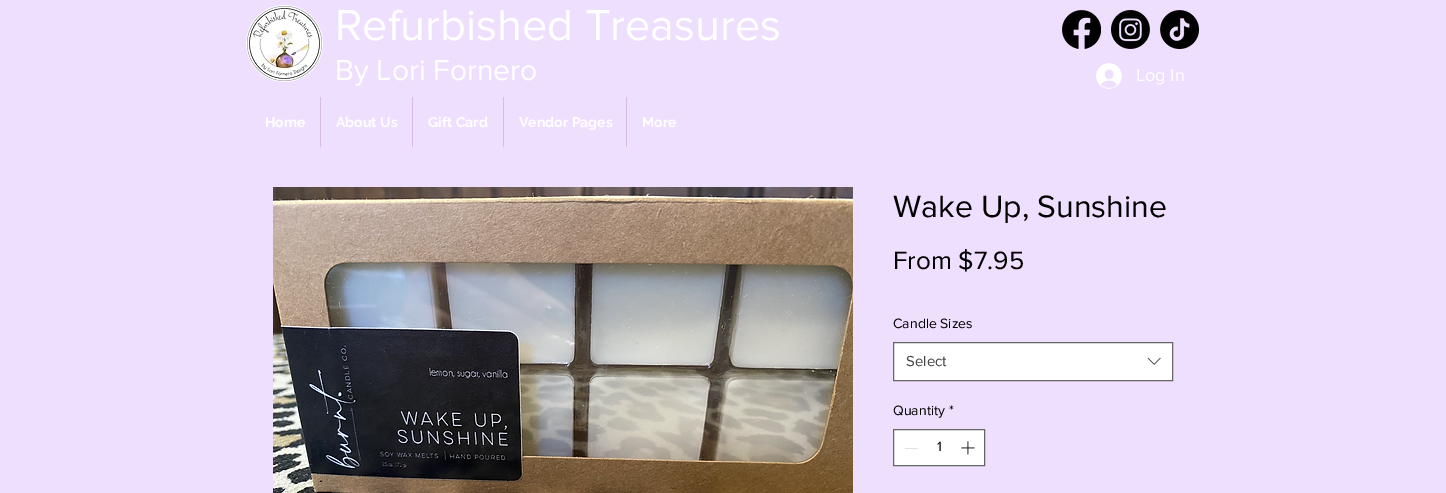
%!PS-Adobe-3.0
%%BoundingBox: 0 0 1446 493
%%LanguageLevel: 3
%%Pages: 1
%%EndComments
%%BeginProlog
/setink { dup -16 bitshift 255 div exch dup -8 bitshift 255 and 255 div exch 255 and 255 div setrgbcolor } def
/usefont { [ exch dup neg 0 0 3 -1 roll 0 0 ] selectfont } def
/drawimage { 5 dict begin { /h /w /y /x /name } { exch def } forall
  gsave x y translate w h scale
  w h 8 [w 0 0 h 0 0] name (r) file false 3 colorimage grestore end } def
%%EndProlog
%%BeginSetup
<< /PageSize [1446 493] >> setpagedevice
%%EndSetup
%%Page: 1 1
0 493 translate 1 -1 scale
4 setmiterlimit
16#EFDFFF setink
0 0 1446 493 rectfill
(img1.raw) 246 5 77 77 drawimage
/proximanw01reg-Regular 45 usefont
16#FFFFFF setink
335 40 moveto (Refurbished Treasures) show
(img2.raw) 1062 10 39 39 drawimage
(img3.raw) 1111 10 39 39 drawimage
(img4.raw) 1160 10 39 39 drawimage
/proximanw01reg-Regular 30 usefont
335 80 moveto (By Lori Fornero) show
(img5.raw) 1096 63 26 26 drawimage
/proximanw01reg-Regular 18 usefont
1136 81 moveto (Log In) show
/Raleway-Bold 14 usefont
265 127 moveto (Home) show
16#D8BDE2 setink
320 97 1 50 rectfill
16#FFFFFF setink
336 127 moveto (About Us) show
16#D8BDE2 setink
412 97 1 50 rectfill
16#FFFFFF setink
428 127 moveto (Gift Card) show
16#D8BDE2 setink
503 97 1 50 rectfill
16#FFFFFF setink
519 127 moveto (Vendor Pages) show
16#D8BDE2 setink
626 97 1 50 rectfill
16#FFFFFF setink
642 127 moveto (More) show
(img6.raw) 273 187 580 306 drawimage
/proximanw01reg-Regular 32 usefont
16#000000 setink
893 217 moveto (Wake Up, Sunshine) show
/proximanw01reg-Regular 26 usefont
893 269 moveto (From $7.95) show
/proximanw01reg-Regular 14 usefont
893 328 moveto (Candle Sizes) show
16#FFFFFF setink
893.5 342.5 moveto 1172.5 342.5 lineto 1172.5 380.5 lineto 893.5 380.5 lineto closepath gsave fill grestore
16#666666 setink
stroke
/proximanw01reg-Regular 15 usefont
16#444444 setink
906 366 moveto (Select) show
(img7.raw) 1147 357 14 8 drawimage
/proximanw01reg-Regular 14 usefont
16#000000 setink
893 415 moveto (Quantity) show
949 415 moveto (*) show
16#FFFFFF setink
893.5 429.5 moveto 984.5 429.5 lineto 984.5 465.5 lineto 893.5 465.5 lineto closepath gsave fill grestore
16#666666 setink
stroke
16#E3E3E3 setink
905 448 13 1 rectfill
16#000000 setink
937 451 moveto (1) show
(img8.raw) 961 441 14 14 drawimage
showpage
%%EOF
